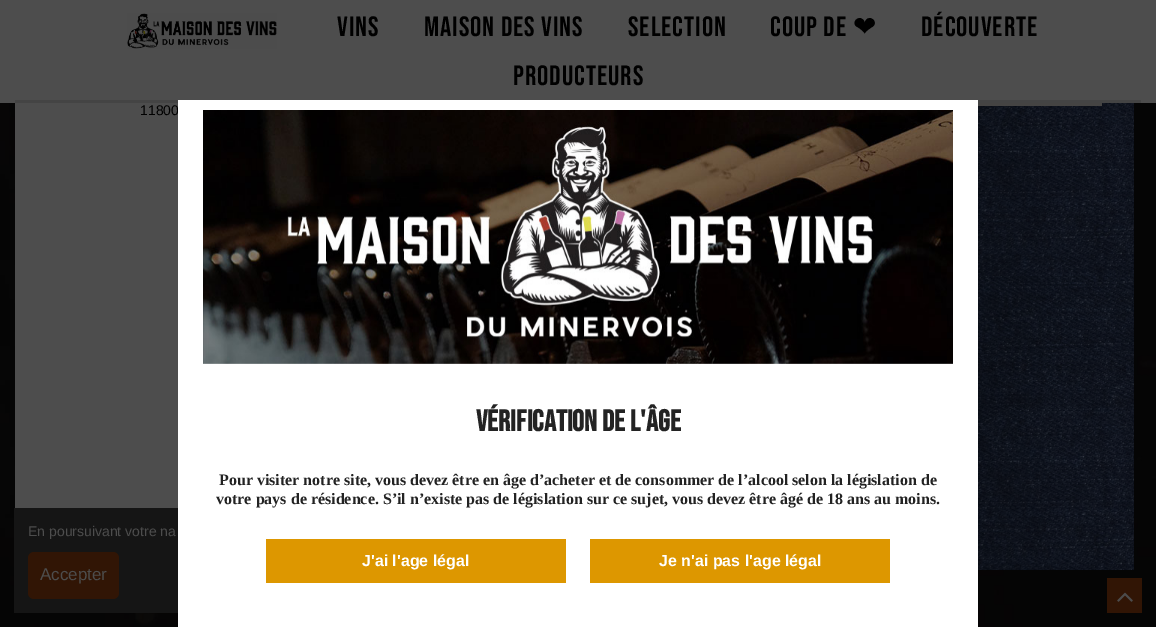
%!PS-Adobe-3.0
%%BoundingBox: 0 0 1156 627
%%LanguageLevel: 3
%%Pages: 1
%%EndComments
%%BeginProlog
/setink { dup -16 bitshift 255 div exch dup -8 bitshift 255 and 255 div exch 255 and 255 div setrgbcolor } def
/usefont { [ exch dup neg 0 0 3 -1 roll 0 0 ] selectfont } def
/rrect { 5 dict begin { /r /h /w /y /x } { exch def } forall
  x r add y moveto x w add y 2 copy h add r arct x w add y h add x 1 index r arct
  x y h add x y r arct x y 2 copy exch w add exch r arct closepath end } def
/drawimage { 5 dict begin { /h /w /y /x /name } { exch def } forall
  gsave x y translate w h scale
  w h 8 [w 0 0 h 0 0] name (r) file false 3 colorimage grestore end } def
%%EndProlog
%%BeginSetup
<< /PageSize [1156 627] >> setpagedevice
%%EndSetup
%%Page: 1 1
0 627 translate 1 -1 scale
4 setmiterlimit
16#FFFFFF setink
0 0 1156 627 rectfill
(img1.raw) 0 103 1156 524 drawimage
16#4D4D4D setink
0 0 1156 103 rectfill
16#444444 setink
15 100 1126 3 rectfill
(img2.raw) 127 13 150 36 drawimage
/BebasNeue-Regular 28 usefont
16#000000 setink
337 36 moveto 1 0 (VINS) ashow
424 36 moveto 1 0 (MAISON DES VINS) ashow
628 36 moveto 1 0 (SELECTION) ashow
770 36 moveto 1 0 (COUP DE) ashow
/DejaVuSans-Regular 28 usefont
853 36 moveto 1 0 (❤) ashow
/BebasNeue-Regular 28 usefont
921 36 moveto 1 0 (DÉCOUVERTE) ashow
513 85 moveto 1 0 (PRODUCTEURS) ashow
16#4D4D4D setink
15 103 163 405 rectfill
/LiberationSans-Regular 14 usefont
16#000000 setink
140 115 moveto (11800) show
(img3.raw) 978 103 156 467 drawimage
16#454443 setink
978 103 124 3 rectfill
16#151515 setink
14 508 164 105 rectfill
16#4D4D4D setink
28 536 moveto (En poursuivant votre na) show
16#311505 setink
28 552 91 47 6 rrect fill
/LiberationSans-Regular 17 usefont
16#4D4D4D setink
40 580 moveto (Accepter) show
16#FFFFFF setink
178 100 800 527 rectfill
(img4.raw) 203 110 750 254 drawimage
/BebasNeue-Bold 30 usefont
16#232323 setink
476 431 moveto (Vérification de l'âge) show
/LiberationSerif-Bold 16 usefont
219 485 moveto (Pour visiter notre site, vous devez être en âge d’acheter et de consommer de l’alcool selon la législation de) show
216 504 moveto (votre pays de résidence. S’il n’existe pas de législation sur ce sujet, vous devez être âgé de 18 ans au moins.) show
16#DD9700 setink
266 539 300 44 rectfill
/LiberationSans-Bold 16 usefont
16#FFFFFF setink
362 566 moveto (J'ai l'age légal) show
16#DD9700 setink
590 539 300 44 rectfill
16#FFFFFF setink
659 566 moveto (Je n'ai pas l'age légal) show
16#311505 setink
1107 578 35 35 rectfill
(img5.raw) 1117 592 16 10 drawimage
showpage
%%EOF
